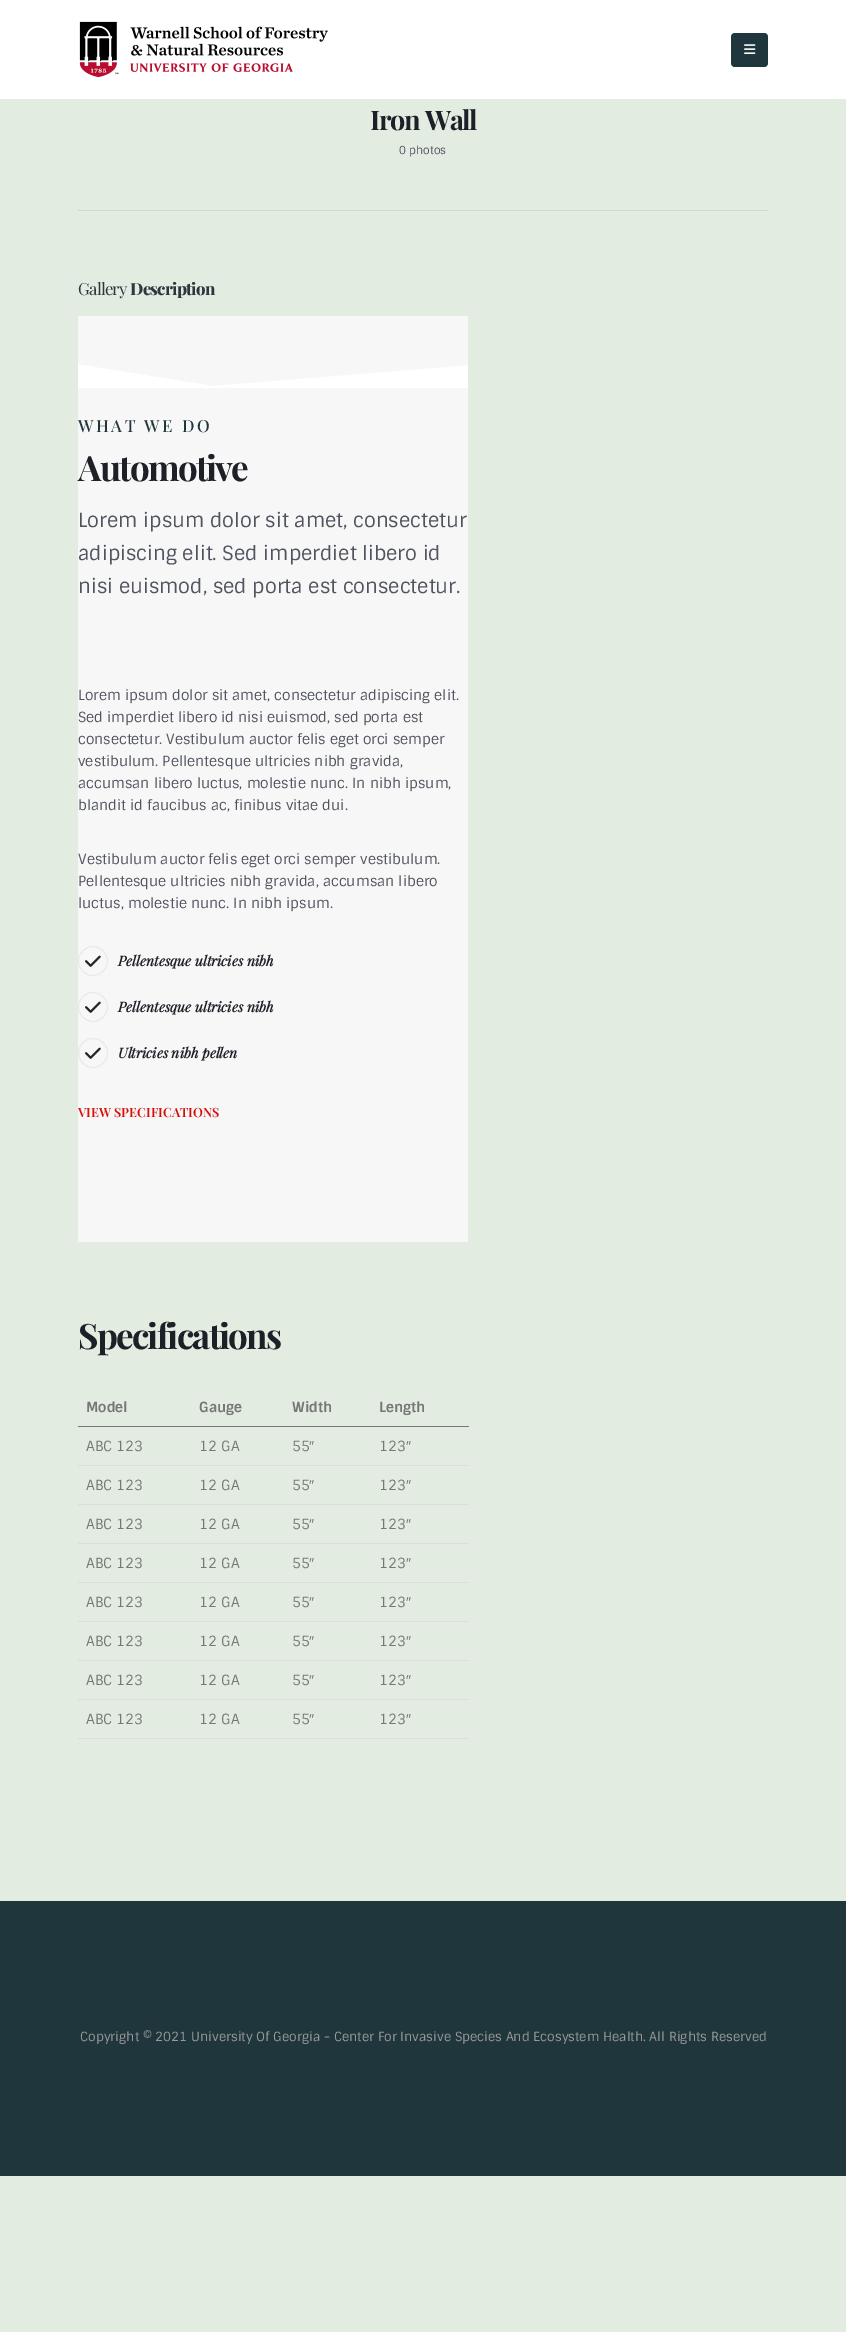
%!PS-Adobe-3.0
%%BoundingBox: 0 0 846 2332
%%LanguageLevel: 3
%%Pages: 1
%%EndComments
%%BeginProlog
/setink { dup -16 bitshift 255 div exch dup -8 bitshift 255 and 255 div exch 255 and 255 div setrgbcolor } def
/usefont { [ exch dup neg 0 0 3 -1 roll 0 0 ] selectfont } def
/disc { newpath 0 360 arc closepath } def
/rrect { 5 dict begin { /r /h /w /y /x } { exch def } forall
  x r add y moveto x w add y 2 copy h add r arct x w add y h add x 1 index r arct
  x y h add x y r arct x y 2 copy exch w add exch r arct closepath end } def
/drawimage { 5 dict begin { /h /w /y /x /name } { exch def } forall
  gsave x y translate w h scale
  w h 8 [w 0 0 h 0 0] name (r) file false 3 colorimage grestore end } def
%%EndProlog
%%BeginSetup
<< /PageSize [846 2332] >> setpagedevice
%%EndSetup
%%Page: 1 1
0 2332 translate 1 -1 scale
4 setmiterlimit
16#E2ECE1 setink
0 0 846 2332 rectfill
16#FFFFFF setink
0 0 846 99 rectfill
(img1.raw) 79 21 249 57 drawimage
16#1F363D setink
731 33 37 34 4 rrect fill
(img2.raw) 744 44 12 10 drawimage
/PlayfairDisplay-Bold 27 usefont
16#1D2127 setink
370 130 moveto -1.25 0 (Iron Wall) ashow
/Sintony-Regular 11 usefont
16#50545F setink
399 154 moveto (0 photos) show
16#D0D9CF setink
78 210 690 1 rectfill
/PlayfairDisplay-Regular 16.75 usefont
16#2E353E setink
78 295 moveto -0.75 0 (Gallery) ashow
/PlayfairDisplay-ExtraBold 16.75 usefont
130 295 moveto -0.75 0 (Description) ashow
16#F7F7F7 setink
78 316 390 926 rectfill
gsave
78 364 390 24 rectclip
16#FFFFFF setink
76 364 moveto 213 386 lineto 472 365 lineto 472 390 lineto 76 390 lineto closepath fill
grestore
/PlayfairDisplay-Medium 16.75 usefont
16#1F363D setink
78 432 moveto 2.5 0 (WHAT WE DO) ashow
/PlayfairDisplay-Bold 35 usefont
16#1D2127 setink
78 481 moveto -1.75 0 (Automotive) ashow
/Sintony-Regular 19.6 usefont
16#50545F setink
[
    [(Lorem ipsum dolor sit amet, consectetur) 78 527]
    [(adipiscing elit. Sed imperdiet libero id) 78 560]
    [(nisi euismod, sed porta est consectetur.) 78 593]
] { aload pop moveto show } forall
/Sintony-Regular 14 usefont
[
    [(Lorem ipsum dolor sit amet, consectetur adipiscing elit.) 78 700]
    [(Sed imperdiet libero id nisi euismod, sed porta est) 78 722]
    [(consectetur. Vestibulum auctor felis eget orci semper) 78 744]
    [(vestibulum. Pellentesque ultricies nibh gravida,) 78 766]
    [(accumsan libero luctus, molestie nunc. In nibh ipsum,) 78 788]
    [(blandit id faucibus ac, finibus vitae dui.) 78 810]
    [(Vestibulum auctor felis eget orci semper vestibulum.) 78 864]
    [(Pellentesque ultricies nibh gravida, accumsan libero) 78 886]
    [(luctus, molestie nunc. In nibh ipsum.) 78 908]
] { aload pop moveto show } forall
16#E9E9E9 setink
93 961 14.5 disc stroke
(img3.raw) 85 955 16 12 drawimage
/PlayfairDisplay-BoldItalic 14 usefont
16#1D2127 setink
118 966 moveto (Pellentesque ultricies nibh) show
16#E9E9E9 setink
93 1007 14.5 disc stroke
(img3.raw) 85 1001 16 12 drawimage
16#1D2127 setink
118 1012 moveto (Pellentesque ultricies nibh) show
16#E9E9E9 setink
93 1053 14.5 disc stroke
(img3.raw) 85 1047 16 12 drawimage
16#1D2127 setink
118 1058 moveto (Ultricies nibh pellen) show
/PlayfairDisplay-SemiBold 12.75 usefont
16#D80D07 setink
78 1117 moveto (VIEW SPECIFICATIONS) show
/PlayfairDisplay-Bold 35 usefont
16#1D2127 setink
78 1349 moveto -1.75 0 (Specifications) ashow
/Sintony-Bold 14 usefont
16#777777 setink
[
    [(Model) 86 1412]
    [(Gauge) 199 1412]
    [(Width) 292 1412]
] { aload pop moveto show } forall
78 1426 391 1 rectfill
379 1412 moveto (Length) show
/Sintony-Regular 14 usefont
[
    [(ABC 123) 86 1451]
    [(12 GA) 199 1451]
    [(55) 292 1451]
] { aload pop moveto show } forall
/LiberationSans-Regular 14 usefont
309 1451 moveto (″) show
16#DDDDDD setink
78 1465 391 1 rectfill
/Sintony-Regular 14 usefont
16#777777 setink
379 1451 moveto (123) show
/LiberationSans-Regular 14 usefont
406 1451 moveto (″) show
/Sintony-Regular 14 usefont
[
    [(ABC 123) 86 1490]
    [(12 GA) 199 1490]
    [(55) 292 1490]
] { aload pop moveto show } forall
/LiberationSans-Regular 14 usefont
309 1490 moveto (″) show
16#DDDDDD setink
78 1504 391 1 rectfill
/Sintony-Regular 14 usefont
16#777777 setink
379 1490 moveto (123) show
/LiberationSans-Regular 14 usefont
406 1490 moveto (″) show
/Sintony-Regular 14 usefont
[
    [(ABC 123) 86 1529]
    [(12 GA) 199 1529]
    [(55) 292 1529]
] { aload pop moveto show } forall
/LiberationSans-Regular 14 usefont
309 1529 moveto (″) show
16#DDDDDD setink
78 1543 391 1 rectfill
/Sintony-Regular 14 usefont
16#777777 setink
379 1529 moveto (123) show
/LiberationSans-Regular 14 usefont
406 1529 moveto (″) show
/Sintony-Regular 14 usefont
[
    [(ABC 123) 86 1568]
    [(12 GA) 199 1568]
    [(55) 292 1568]
] { aload pop moveto show } forall
/LiberationSans-Regular 14 usefont
309 1568 moveto (″) show
16#DDDDDD setink
78 1582 391 1 rectfill
/Sintony-Regular 14 usefont
16#777777 setink
379 1568 moveto (123) show
/LiberationSans-Regular 14 usefont
406 1568 moveto (″) show
/Sintony-Regular 14 usefont
[
    [(ABC 123) 86 1607]
    [(12 GA) 199 1607]
    [(55) 292 1607]
] { aload pop moveto show } forall
/LiberationSans-Regular 14 usefont
309 1607 moveto (″) show
16#DDDDDD setink
78 1621 391 1 rectfill
/Sintony-Regular 14 usefont
16#777777 setink
379 1607 moveto (123) show
/LiberationSans-Regular 14 usefont
406 1607 moveto (″) show
/Sintony-Regular 14 usefont
[
    [(ABC 123) 86 1646]
    [(12 GA) 199 1646]
    [(55) 292 1646]
] { aload pop moveto show } forall
/LiberationSans-Regular 14 usefont
309 1646 moveto (″) show
16#DDDDDD setink
78 1660 391 1 rectfill
/Sintony-Regular 14 usefont
16#777777 setink
379 1646 moveto (123) show
/LiberationSans-Regular 14 usefont
406 1646 moveto (″) show
/Sintony-Regular 14 usefont
[
    [(ABC 123) 86 1685]
    [(12 GA) 199 1685]
    [(55) 292 1685]
] { aload pop moveto show } forall
/LiberationSans-Regular 14 usefont
309 1685 moveto (″) show
16#DDDDDD setink
78 1699 391 1 rectfill
/Sintony-Regular 14 usefont
16#777777 setink
379 1685 moveto (123) show
/LiberationSans-Regular 14 usefont
406 1685 moveto (″) show
/Sintony-Regular 14 usefont
[
    [(ABC 123) 86 1724]
    [(12 GA) 199 1724]
    [(55) 292 1724]
] { aload pop moveto show } forall
/LiberationSans-Regular 14 usefont
309 1724 moveto (″) show
16#DDDDDD setink
78 1738 391 1 rectfill
/Sintony-Regular 14 usefont
16#777777 setink
379 1724 moveto (123) show
/LiberationSans-Regular 14 usefont
406 1724 moveto (″) show
16#1F363D setink
0 1901 846 275 rectfill
/Sintony-Regular 12.6 usefont
16#999999 setink
80 2041 moveto (Copyright © 2021 University Of Georgia - Center For Invasive Species And Ecosystem Health. All Rights Reserved) show
showpage
%%EOF
